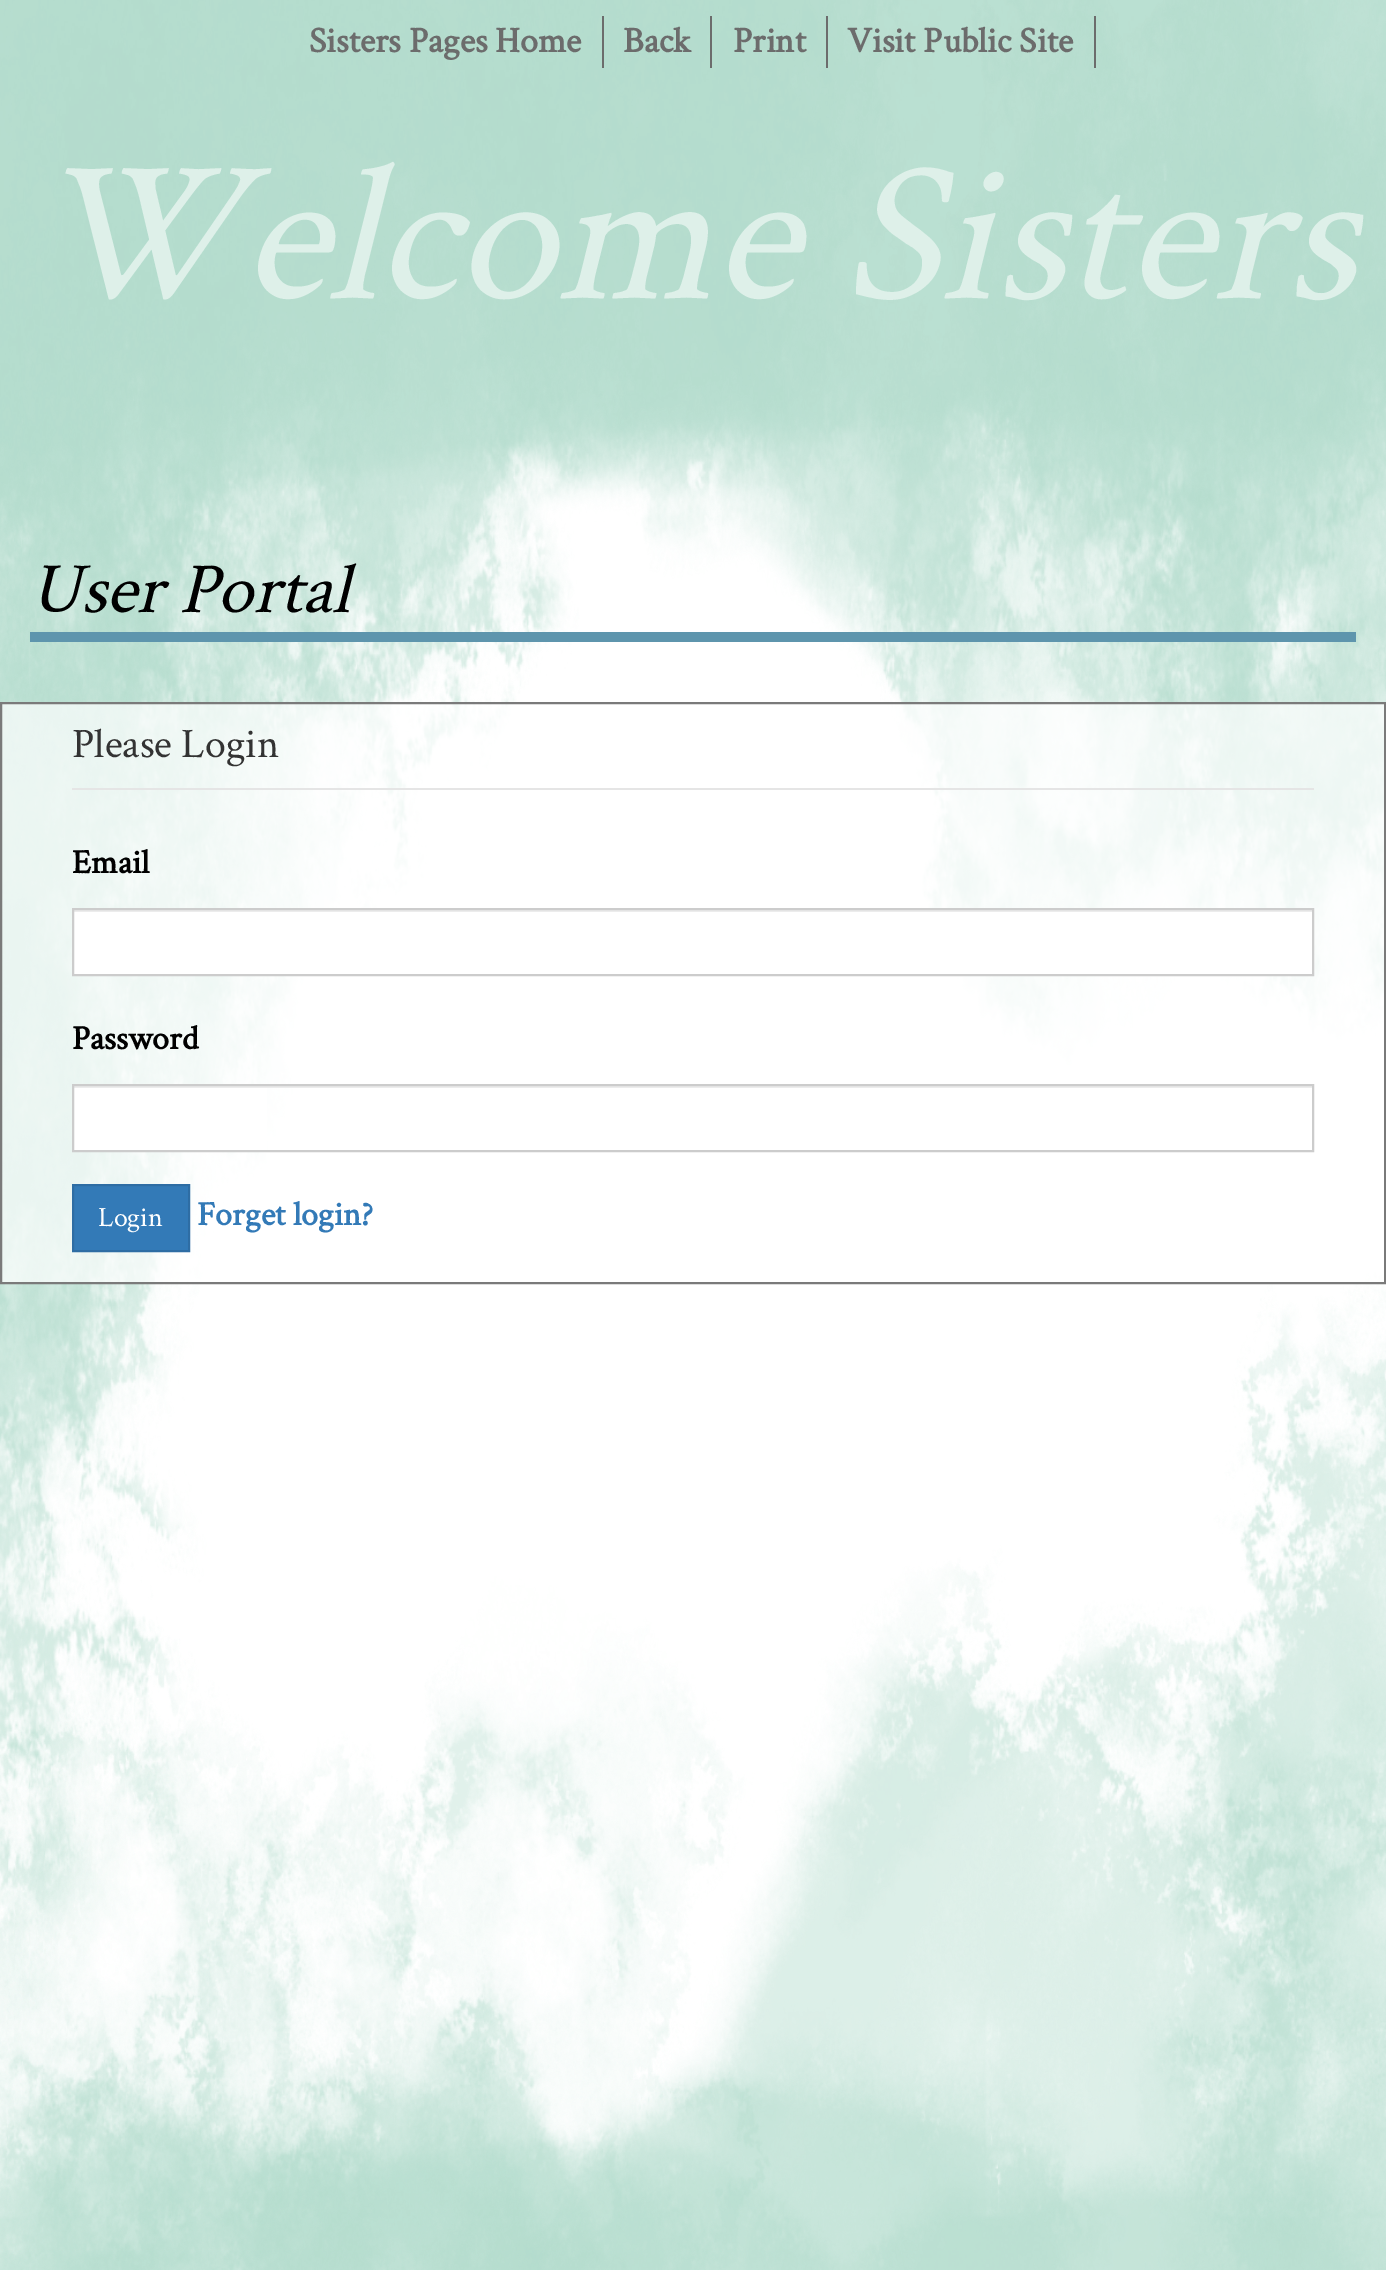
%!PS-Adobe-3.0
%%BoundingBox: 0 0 1386 2270
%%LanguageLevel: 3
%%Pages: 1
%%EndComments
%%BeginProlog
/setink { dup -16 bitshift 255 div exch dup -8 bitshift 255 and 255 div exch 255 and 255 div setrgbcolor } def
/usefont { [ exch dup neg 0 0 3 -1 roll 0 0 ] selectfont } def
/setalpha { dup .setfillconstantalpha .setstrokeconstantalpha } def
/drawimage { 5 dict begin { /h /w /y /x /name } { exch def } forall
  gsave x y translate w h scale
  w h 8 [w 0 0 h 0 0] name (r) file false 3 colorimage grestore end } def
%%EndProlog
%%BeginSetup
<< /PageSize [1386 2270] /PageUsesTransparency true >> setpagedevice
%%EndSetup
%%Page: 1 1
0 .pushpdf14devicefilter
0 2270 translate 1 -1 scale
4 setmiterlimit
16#FFFFFF setink
0 0 1386 2270 rectfill
(img1.raw) 0 0 1386 2270 drawimage
16#6C6C6C setink
602 16 2 52 rectfill
/CrimsonText-Bold 36 usefont
309 52 moveto (Sisters Pages Home) show
710 16 2 52 rectfill
623 52 moveto (Back) show
826 16 2 52 rectfill
733 52 moveto (Print) show
1094 16 2 52 rectfill
847 52 moveto (Visit Public Site) show
/CrimsonText-Italic 201 usefont
16#DEF0E9 setink
31 298 moveto (Welcome Sisters) show
16#5E95AD setink
30 632 1326 10 rectfill
/CrimsonText-Italic 72 usefont
16#000000 setink
30 612 moveto (User Portal) show
0.7 setalpha
16#FFFFFF setink
1 703 moveto 1385 703 lineto 1385 1283 lineto 1 1283 lineto closepath fill
1 setalpha
16#7A7A7A setink
2 setlinewidth
1 703 moveto 1385 703 lineto 1385 1283 lineto 1 1283 lineto closepath stroke
16#E5E5E5 setink
72 788 1242 2 rectfill
/CrimsonText-Regular 42 usefont
16#333333 setink
72 757 moveto (Please Login) show
/CrimsonText-Bold 34 usefont
16#000000 setink
72 873 moveto (Email) show
16#FFFFFF setink
74 912 1238 62 rectfill
16#ECECEC setink
74 910 1238 2 rectfill
16#CCCCCC setink
73 909 1240 66 rectstroke
16#000000 setink
72 1049 moveto (Password) show
16#FFFFFF setink
74 1088 193 62 rectfill
16#ECECEC setink
74 1086 1238 2 rectfill
16#CCCCCC setink
73 1085 1240 66 rectstroke
16#337AB7 setink
73 1185 moveto 189 1185 lineto 189 1251 lineto 73 1251 lineto closepath gsave fill grestore
16#2E6DA4 setink
stroke
/CrimsonText-Regular 28 usefont
16#FFFFFF setink
98 1226 moveto (Login) show
/CrimsonText-Bold 34 usefont
16#337AB7 setink
197 1225 moveto (Forget login?) show
.poppdf14devicefilter showpage
%%EOF
